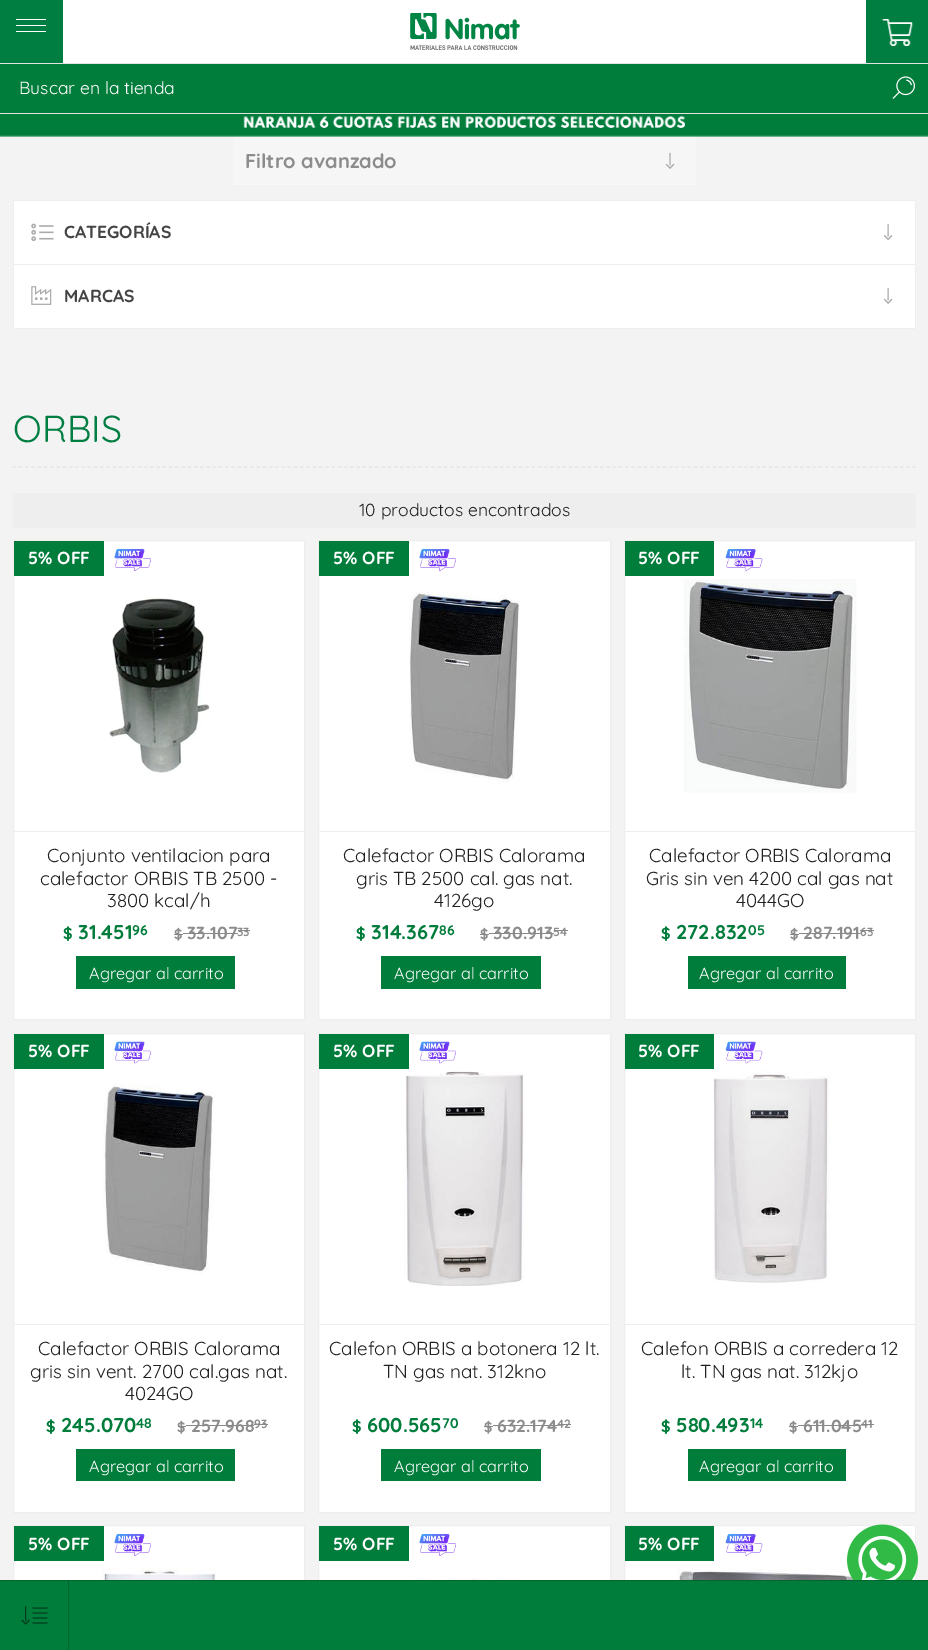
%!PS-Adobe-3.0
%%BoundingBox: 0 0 928 1650
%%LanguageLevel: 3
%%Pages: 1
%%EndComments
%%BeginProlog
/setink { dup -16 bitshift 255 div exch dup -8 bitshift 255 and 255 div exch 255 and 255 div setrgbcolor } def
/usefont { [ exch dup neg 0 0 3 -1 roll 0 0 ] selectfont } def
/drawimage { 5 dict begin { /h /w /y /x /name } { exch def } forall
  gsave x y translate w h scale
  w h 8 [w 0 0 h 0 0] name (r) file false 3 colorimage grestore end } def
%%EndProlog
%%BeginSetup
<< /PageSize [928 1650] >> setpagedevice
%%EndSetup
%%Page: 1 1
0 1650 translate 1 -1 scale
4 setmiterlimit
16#F3F3F3 setink
0 0 928 1650 rectfill
16#E3E3E3 setink
0 62 moveto 0 64 lineto 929 64 lineto 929 1 lineto 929 62 lineto closepath fill
[
    [0 0 63 63 16#007E42]
    [16 19 30 1 16#FFFFFF]
    [16 25 30 1 16#FFFFFF]
    [16 31 30 1 16#FFFFFF]
    [866 0 62 63 16#007E42]
] { aload pop setink rectfill } forall
(img1.raw) 882 19 31 27 drawimage
16#FFFFFF setink
63 0 803 63 rectfill
(img2.raw) 410 13 110 37 drawimage
16#E3E3E3 setink
0 113 928 1 rectfill
16#007C3B setink
0 64 928 49 rectfill
/Quicksand-Regular 17.5 usefont
16#FFFFFF setink
19 94 moveto (Buscar en la tienda) show
(img3.raw) 892 76 23 23 drawimage
16#F6F6F6 setink
233 136 463 52 rectfill
(img4.raw) 0 114 928 23 drawimage
16#EEEEEE setink
233 186 463 1 rectfill
/Quicksand-Bold 20 usefont
16#8C8C8C setink
245 168 moveto (Filtro avanzado) show
(img5.raw) 665 152 10 17 drawimage
[
    [14 201 901 127 16#FFFFFF]
    [13 200 903 1 16#EEEEEE]
    [915 200 1 129 16#EEEEEE]
    [13 200 1 129 16#EEEEEE]
    [14 264 901 1 16#EEEEEE]
] { aload pop setink rectfill } forall
(img6.raw) 31 223 23 18 drawimage
/Quicksand-Bold 17.5 usefont
16#444444 setink
64 238 moveto (CATEGORÍAS) show
(img7.raw) 883 224 10 17 drawimage
16#EEEEEE setink
14 328 901 1 rectfill
(img8.raw) 31 286 21 19 drawimage
16#444444 setink
64 302 moveto (MARCAS) show
(img9.raw) 883 287 10 17 drawimage
16#E6E6E6 setink
1.2 setlinewidth
[3.75 2.5] 0 setdash
12.5 467 moveto 916 467 lineto stroke
/Quicksand-Regular 37.5 usefont
16#007E42 setink
13 442 moveto (ORBIS) show
16#EEEEEE setink
13 493 903 35 rectfill
/Quicksand-Regular 17.5 usefont
16#212121 setink
359 516 moveto (10 productos encontrados) show
16#FFFFFF setink
13.5 540.5 moveto 304.5 540.5 lineto 304.5 1019.5 lineto 13.5 1019.5 lineto closepath gsave fill grestore
16#EEEEEE setink
1 setlinewidth
[] 0 setdash
stroke
14 831 290 1 rectfill
16#007C3B setink
14 541 90 35 rectfill
/Quicksand-Bold 17.5 usefont
16#FFFFFF setink
28 564 moveto (5% OFF) show
(img10.raw) 114 548 38 23 drawimage
(img11.raw) 109 597 101 176 drawimage
/Quicksand-Regular 18.75 usefont
16#212121 setink
[
    [(Conjunto ventilacion para) 47 862]
    [(calefactor ORBIS TB 2500 -) 40 885]
    [(3800 kcal/h) 107 907]
] { aload pop moveto show } forall
/Quicksand-Bold 16 usefont
16#007C3B setink
63 939 moveto ($) show
/Quicksand-Bold 20 usefont
78 939 moveto (31.451) show
/Quicksand-Bold 14 usefont
132 935 moveto (96) show
16#8C8C8C setink
174 939 moveto ($) show
16#888888 setink
174 934 9 1 rectfill
/Quicksand-Bold 17.5 usefont
16#8C8C8C setink
187 939 moveto (33.107) show
16#888888 setink
183 933 55 1 rectfill
/Quicksand-Bold 12 usefont
16#8C8C8C setink
237 936 moveto (33) show
16#888888 setink
238 930 12 1 rectfill
16#007C3B setink
76 956 159 33 rectfill
/Quicksand-Regular 16.25 usefont
16#FFFFFF setink
89 979 moveto (Agregar al carrito) show
318.5 540.5 moveto 610.5 540.5 lineto 610.5 1019.5 lineto 318.5 1019.5 lineto closepath gsave fill grestore
16#EEEEEE setink
stroke
319 831 291 1 rectfill
16#007C3B setink
319 541 90 35 rectfill
/Quicksand-Bold 17.5 usefont
16#FFFFFF setink
333 564 moveto (5% OFF) show
(img12.raw) 419 548 38 23 drawimage
(img13.raw) 409 592 111 192 drawimage
/Quicksand-Regular 18.75 usefont
16#212121 setink
[
    [(Calefactor ORBIS Calorama) 343 862]
    [(gris TB 2500 cal. gas nat.) 356 885]
    [(4126go) 434 907]
] { aload pop moveto show } forall
/Quicksand-Bold 16 usefont
16#007C3B setink
356 939 moveto ($) show
/Quicksand-Bold 20 usefont
371 939 moveto (314.367) show
/Quicksand-Bold 14 usefont
439 935 moveto (86) show
16#8C8C8C setink
480 939 moveto ($) show
16#888888 setink
480 934 9 1 rectfill
/Quicksand-Bold 17.5 usefont
16#8C8C8C setink
493 939 moveto (330.913) show
16#888888 setink
489 933 65 1 rectfill
/Quicksand-Bold 12 usefont
16#8C8C8C setink
553 936 moveto (54) show
16#888888 setink
554 930 14 1 rectfill
16#007C3B setink
381 956 160 33 rectfill
/Quicksand-Regular 16.25 usefont
16#FFFFFF setink
394 979 moveto (Agregar al carrito) show
624.5 540.5 moveto 915.5 540.5 lineto 915.5 1019.5 lineto 624.5 1019.5 lineto closepath gsave fill grestore
16#EEEEEE setink
stroke
625 831 290 1 rectfill
16#007C3B setink
625 541 89 35 rectfill
/Quicksand-Bold 17.5 usefont
16#FFFFFF setink
638 564 moveto (5% OFF) show
(img14.raw) 725 548 38 24 drawimage
(img15.raw) 683 579 174 214 drawimage
/Quicksand-Regular 18.75 usefont
16#212121 setink
[
    [(Calefactor ORBIS Calorama) 649 862]
    [(Gris sin ven 4200 cal gas nat) 646 885]
    [(4044GO) 736 907]
] { aload pop moveto show } forall
/Quicksand-Bold 16 usefont
16#007C3B setink
661 939 moveto ($) show
/Quicksand-Bold 20 usefont
676 939 moveto (272.832) show
/Quicksand-Bold 14 usefont
748 935 moveto (05) show
16#8C8C8C setink
790 939 moveto ($) show
16#888888 setink
790 934 9 1 rectfill
/Quicksand-Bold 17.5 usefont
16#8C8C8C setink
803 939 moveto (287.191) show
16#888888 setink
799 933 61 1 rectfill
/Quicksand-Bold 12 usefont
16#8C8C8C setink
860 936 moveto (63) show
16#888888 setink
860 930 14 1 rectfill
16#007C3B setink
688 956 158 33 rectfill
/Quicksand-Regular 16.25 usefont
16#FFFFFF setink
699 979 moveto (Agregar al carrito) show
13.5 1033.5 moveto 304.5 1033.5 lineto 304.5 1512.5 lineto 13.5 1512.5 lineto closepath gsave fill grestore
16#EEEEEE setink
stroke
14 1324 290 1 rectfill
16#007C3B setink
14 1034 90 35 rectfill
/Quicksand-Bold 17.5 usefont
16#FFFFFF setink
28 1057 moveto (5% OFF) show
(img16.raw) 114 1041 38 23 drawimage
(img17.raw) 103 1084 111 190 drawimage
/Quicksand-Regular 18.75 usefont
16#212121 setink
[
    [(Calefactor ORBIS Calorama) 38 1355]
    [(gris sin vent. 2700 cal.gas nat.) 30 1378]
    [(4024GO) 125 1400]
] { aload pop moveto show } forall
/Quicksand-Bold 16 usefont
16#007C3B setink
46 1432 moveto ($) show
/Quicksand-Bold 20 usefont
61 1432 moveto (245.070) show
/Quicksand-Bold 14 usefont
136 1428 moveto (48) show
16#8C8C8C setink
177 1432 moveto ($) show
16#888888 setink
178 1426 8 1 rectfill
/Quicksand-Bold 17.5 usefont
16#8C8C8C setink
191 1432 moveto (257.968) show
16#888888 setink
186 1425 68 1 rectfill
/Quicksand-Bold 12 usefont
16#8C8C8C setink
254 1428 moveto (93) show
16#888888 setink
254 1424 14 1 rectfill
16#007C3B setink
76 1449 159 32 rectfill
/Quicksand-Regular 16.25 usefont
16#FFFFFF setink
89 1472 moveto (Agregar al carrito) show
318.5 1033.5 moveto 610.5 1033.5 lineto 610.5 1512.5 lineto 318.5 1512.5 lineto closepath gsave fill grestore
16#EEEEEE setink
stroke
319 1324 291 1 rectfill
16#007C3B setink
319 1034 90 35 rectfill
/Quicksand-Bold 17.5 usefont
16#FFFFFF setink
333 1057 moveto (5% OFF) show
(img18.raw) 419 1041 38 23 drawimage
(img19.raw) 404 1071 121 215 drawimage
/Quicksand-Regular 18.75 usefont
16#212121 setink
329 1355 moveto (Calefon ORBIS a botonera 12 lt.) show
383 1378 moveto (TN gas nat. 312kno) show
/Quicksand-Bold 16 usefont
16#007C3B setink
352 1432 moveto ($) show
/Quicksand-Bold 20 usefont
367 1432 moveto (600.565) show
/Quicksand-Bold 14 usefont
442 1428 moveto (70) show
16#8C8C8C setink
484 1432 moveto ($) show
16#888888 setink
484 1426 9 1 rectfill
/Quicksand-Bold 17.5 usefont
16#8C8C8C setink
497 1432 moveto (632.174) show
16#888888 setink
493 1425 65 1 rectfill
/Quicksand-Bold 12 usefont
16#8C8C8C setink
557 1428 moveto (42) show
16#888888 setink
558 1424 13 1 rectfill
16#007C3B setink
381 1449 160 32 rectfill
/Quicksand-Regular 16.25 usefont
16#FFFFFF setink
394 1472 moveto (Agregar al carrito) show
624.5 1033.5 moveto 915.5 1033.5 lineto 915.5 1512.5 lineto 624.5 1512.5 lineto closepath gsave fill grestore
16#EEEEEE setink
stroke
625 1324 290 1 rectfill
16#007C3B setink
625 1034 89 35 rectfill
/Quicksand-Bold 17.5 usefont
16#FFFFFF setink
638 1057 moveto (5% OFF) show
(img20.raw) 725 1041 38 23 drawimage
(img21.raw) 713 1071 118 212 drawimage
/Quicksand-Regular 18.75 usefont
16#212121 setink
641 1355 moveto (Calefon ORBIS a corredera 12) show
681 1378 moveto (lt. TN gas nat. 312kjo) show
/Quicksand-Bold 16 usefont
16#007C3B setink
661 1432 moveto ($) show
/Quicksand-Bold 20 usefont
676 1432 moveto (580.493) show
/Quicksand-Bold 14 usefont
750 1428 moveto (14) show
16#8C8C8C setink
789 1432 moveto ($) show
16#888888 setink
789 1426 9 1 rectfill
/Quicksand-Bold 17.5 usefont
16#8C8C8C setink
803 1432 moveto (611.045) show
16#888888 setink
798 1425 63 1 rectfill
/Quicksand-Bold 12 usefont
16#8C8C8C setink
861 1428 moveto (41) show
16#888888 setink
861 1424 13 1 rectfill
16#007C3B setink
688 1449 158 32 rectfill
/Quicksand-Regular 16.25 usefont
16#FFFFFF setink
699 1472 moveto (Agregar al carrito) show
14 1526 290 54 rectfill
16#EEEEEE setink
13.5 1525.5 291 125 rectstroke
16#007C3B setink
14 1526 90 35 rectfill
/Quicksand-Bold 17.5 usefont
16#FFFFFF setink
28 1550 moveto (5% OFF) show
(img10.raw) 114 1533 38 23 drawimage
(img22.raw) 102 1568 114 12 drawimage
319 1526 291 54 rectfill
16#EEEEEE setink
318.5 1525.5 292 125 rectstroke
16#007C3B setink
319 1526 90 35 rectfill
16#FFFFFF setink
333 1550 moveto (5% OFF) show
(img12.raw) 419 1533 38 23 drawimage
(img23.raw) 412 1578 108 2 drawimage
625 1526 290 54 rectfill
16#EEEEEE setink
624.5 1525.5 291 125 rectstroke
16#007C3B setink
625 1526 89 35 rectfill
16#FFFFFF setink
638 1550 moveto (5% OFF) show
(img14.raw) 725 1533 38 24 drawimage
(img24.raw) 678 1569 176 11 drawimage
16#007C3B setink
0 1581 928 69 rectfill
16#00632F setink
0 1580 928 1 rectfill
(img25.raw) 21 1606 27 19 drawimage
68 1581 1 69 rectfill
(img26.raw) 847 1524 71 56 drawimage
showpage
%%EOF
